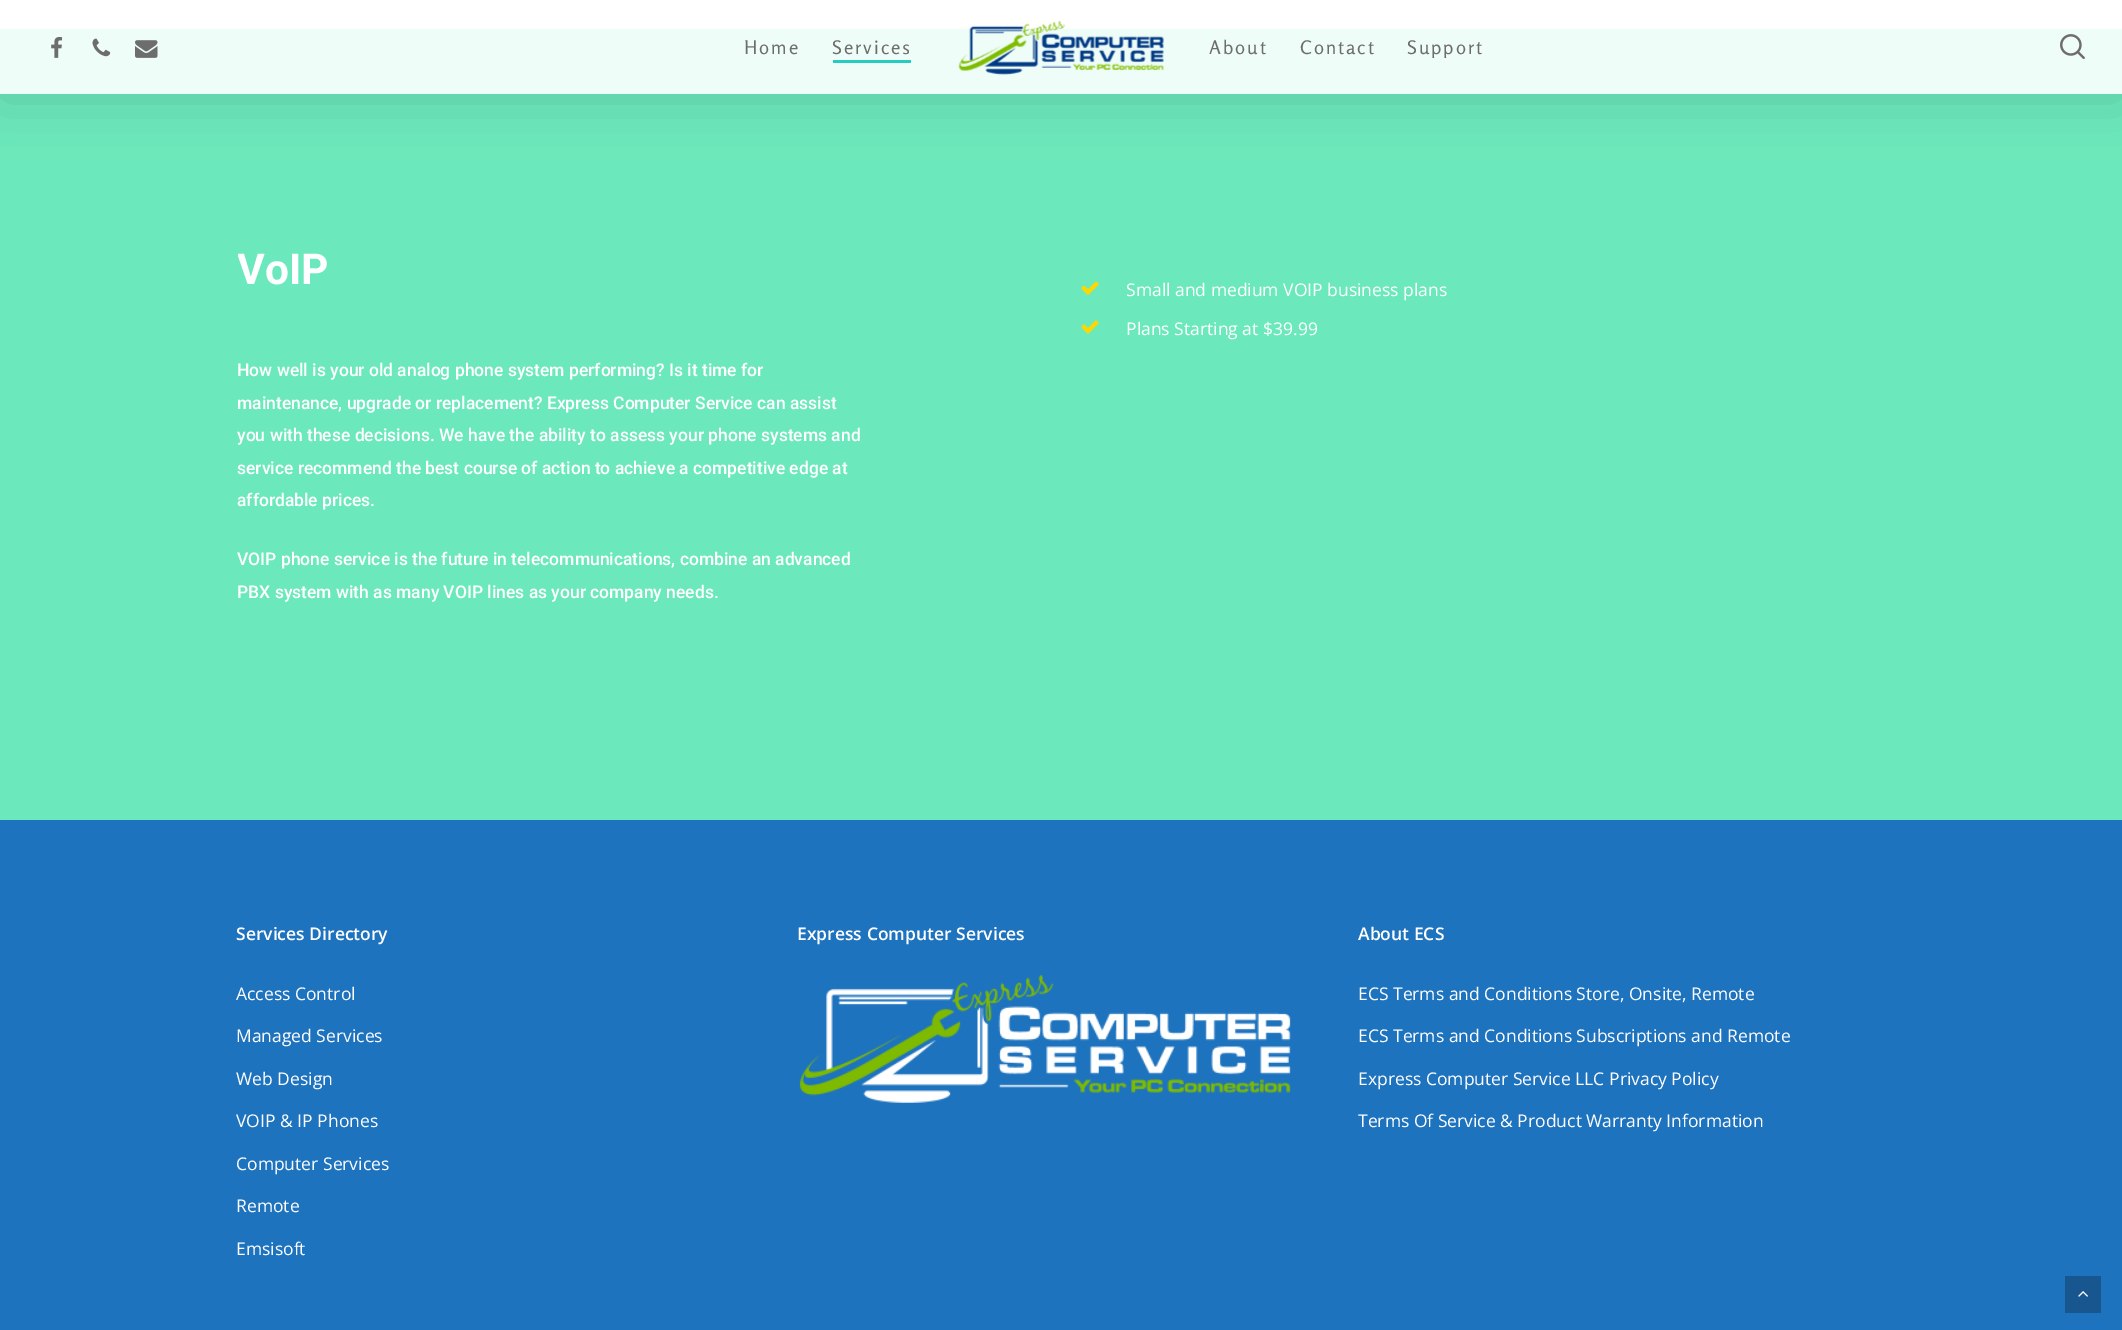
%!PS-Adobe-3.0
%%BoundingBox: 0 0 2122 1330
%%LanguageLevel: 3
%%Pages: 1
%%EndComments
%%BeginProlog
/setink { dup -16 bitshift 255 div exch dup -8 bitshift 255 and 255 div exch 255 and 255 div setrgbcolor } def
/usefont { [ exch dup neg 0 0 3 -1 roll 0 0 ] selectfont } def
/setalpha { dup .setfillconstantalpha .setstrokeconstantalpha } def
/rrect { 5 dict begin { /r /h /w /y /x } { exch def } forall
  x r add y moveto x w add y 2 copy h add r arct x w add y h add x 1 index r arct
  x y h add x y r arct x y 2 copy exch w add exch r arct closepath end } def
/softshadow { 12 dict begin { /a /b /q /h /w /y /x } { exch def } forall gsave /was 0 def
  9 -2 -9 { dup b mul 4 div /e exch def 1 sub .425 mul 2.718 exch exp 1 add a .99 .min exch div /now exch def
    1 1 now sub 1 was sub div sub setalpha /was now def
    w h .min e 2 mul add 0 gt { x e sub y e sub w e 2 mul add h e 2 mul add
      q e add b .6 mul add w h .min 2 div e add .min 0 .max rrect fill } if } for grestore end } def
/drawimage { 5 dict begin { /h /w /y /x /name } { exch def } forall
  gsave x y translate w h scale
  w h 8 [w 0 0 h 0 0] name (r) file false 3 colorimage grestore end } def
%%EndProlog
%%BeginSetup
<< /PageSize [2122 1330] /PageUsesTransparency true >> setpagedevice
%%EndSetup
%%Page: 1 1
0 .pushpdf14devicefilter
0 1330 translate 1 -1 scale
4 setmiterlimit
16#FFFFFF setink
0 0 2122 1330 rectfill
16#6CE9BC setink
0 29 2122 791 rectfill
gsave
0 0 moveto 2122 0 lineto 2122 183 lineto 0 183 lineto closepath 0 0 moveto 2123 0 lineto 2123 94 lineto 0 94 lineto closepath eoclip newpath
16#000000 setink
0 4 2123 94 0 28 0.15 softshadow
grestore
0.89 setalpha
16#FFFFFF setink
0 29 2122 65 rectfill
1 setalpha
(img1.raw) 958 20 206 55 drawimage
(img2.raw) 51 37 12 21 drawimage
(img3.raw) 92 38 19 19 drawimage
(img4.raw) 135 40 23 18 drawimage
/Rosario-Regular 18.75 usefont
16#6D6D6D setink
744 54 moveto 2 0 (Home) ashow
832 54 moveto 2 0 (Services) ashow
16#27CCC0 setink
833 60 78 3 rectfill
16#6D6D6D setink
1209 54 moveto 2 0 (About) ashow
1300 54 moveto 2 0 (Contact) ashow
1407 54 moveto 2 0 (Support) ashow
(img5.raw) 2060 34 25 25 drawimage
gsave
238 241 807 64 rectclip
/Roboto-Bold 42.5 usefont
16#FFFFFF setink
237 284 moveto (VoIP) show
grestore
/Roboto-Medium 17.5 usefont
16#FFFFFF setink
[
    [(How well is your old analog phone system performing? Is it time for) 237 376]
    [(maintenance, upgrade or replacement? Express Computer Service can assist) 237 409]
    [(you with these decisions. We have the ability to assess your phone systems and) 237 441]
    [(service recommend the best course of action to achieve a competitive edge at) 237 474]
    [(affordable prices.) 237 506]
    [(VOIP phone service is the future in telecommunications, combine an advanced) 237 565]
    [(PBX system with as many VOIP lines as your company needs.) 237 598]
] { aload pop moveto show } forall
(img6.raw) 1081 281 18 14 drawimage
/OpenSans-Regular 17.5 usefont
1126 296 moveto (Small and medium VOIP business plans) show
(img7.raw) 1081 320 18 14 drawimage
1126 335 moveto (Plans Starting at $39.99) show
16#1E73BE setink
0 820 2122 510 rectfill
/OpenSans-SemiBold 17.5 usefont
16#FFFFFF setink
236 940 moveto (Services Directory) show
/OpenSans-Regular 17.5 usefont
[
    [(Access Control) 236 1000]
    [(Managed Services) 236 1042]
    [(Web Design) 236 1085]
    [(VOIP & IP Phones) 236 1127]
    [(Computer Services) 236 1170]
    [(Remote) 236 1212]
    [(Emsisoft) 236 1255]
] { aload pop moveto show } forall
/OpenSans-SemiBold 17.5 usefont
797 940 moveto (Express Computer Services) show
(img8.raw) 799 975 492 128 drawimage
1358 940 moveto (About ECS) show
/OpenSans-Regular 17.5 usefont
[
    [(ECS Terms and Conditions Store, Onsite, Remote) 1358 1000]
    [(ECS Terms and Conditions Subscriptions and Remote) 1358 1042]
    [(Express Computer Service LLC Privacy Policy) 1358 1085]
    [(Terms Of Service & Product Warranty Information) 1358 1127]
] { aload pop moveto show } forall
16#17568F setink
2065 1276 36 37 rectfill
(img9.raw) 2078 1291 10 6 drawimage
.poppdf14devicefilter showpage
%%EOF
